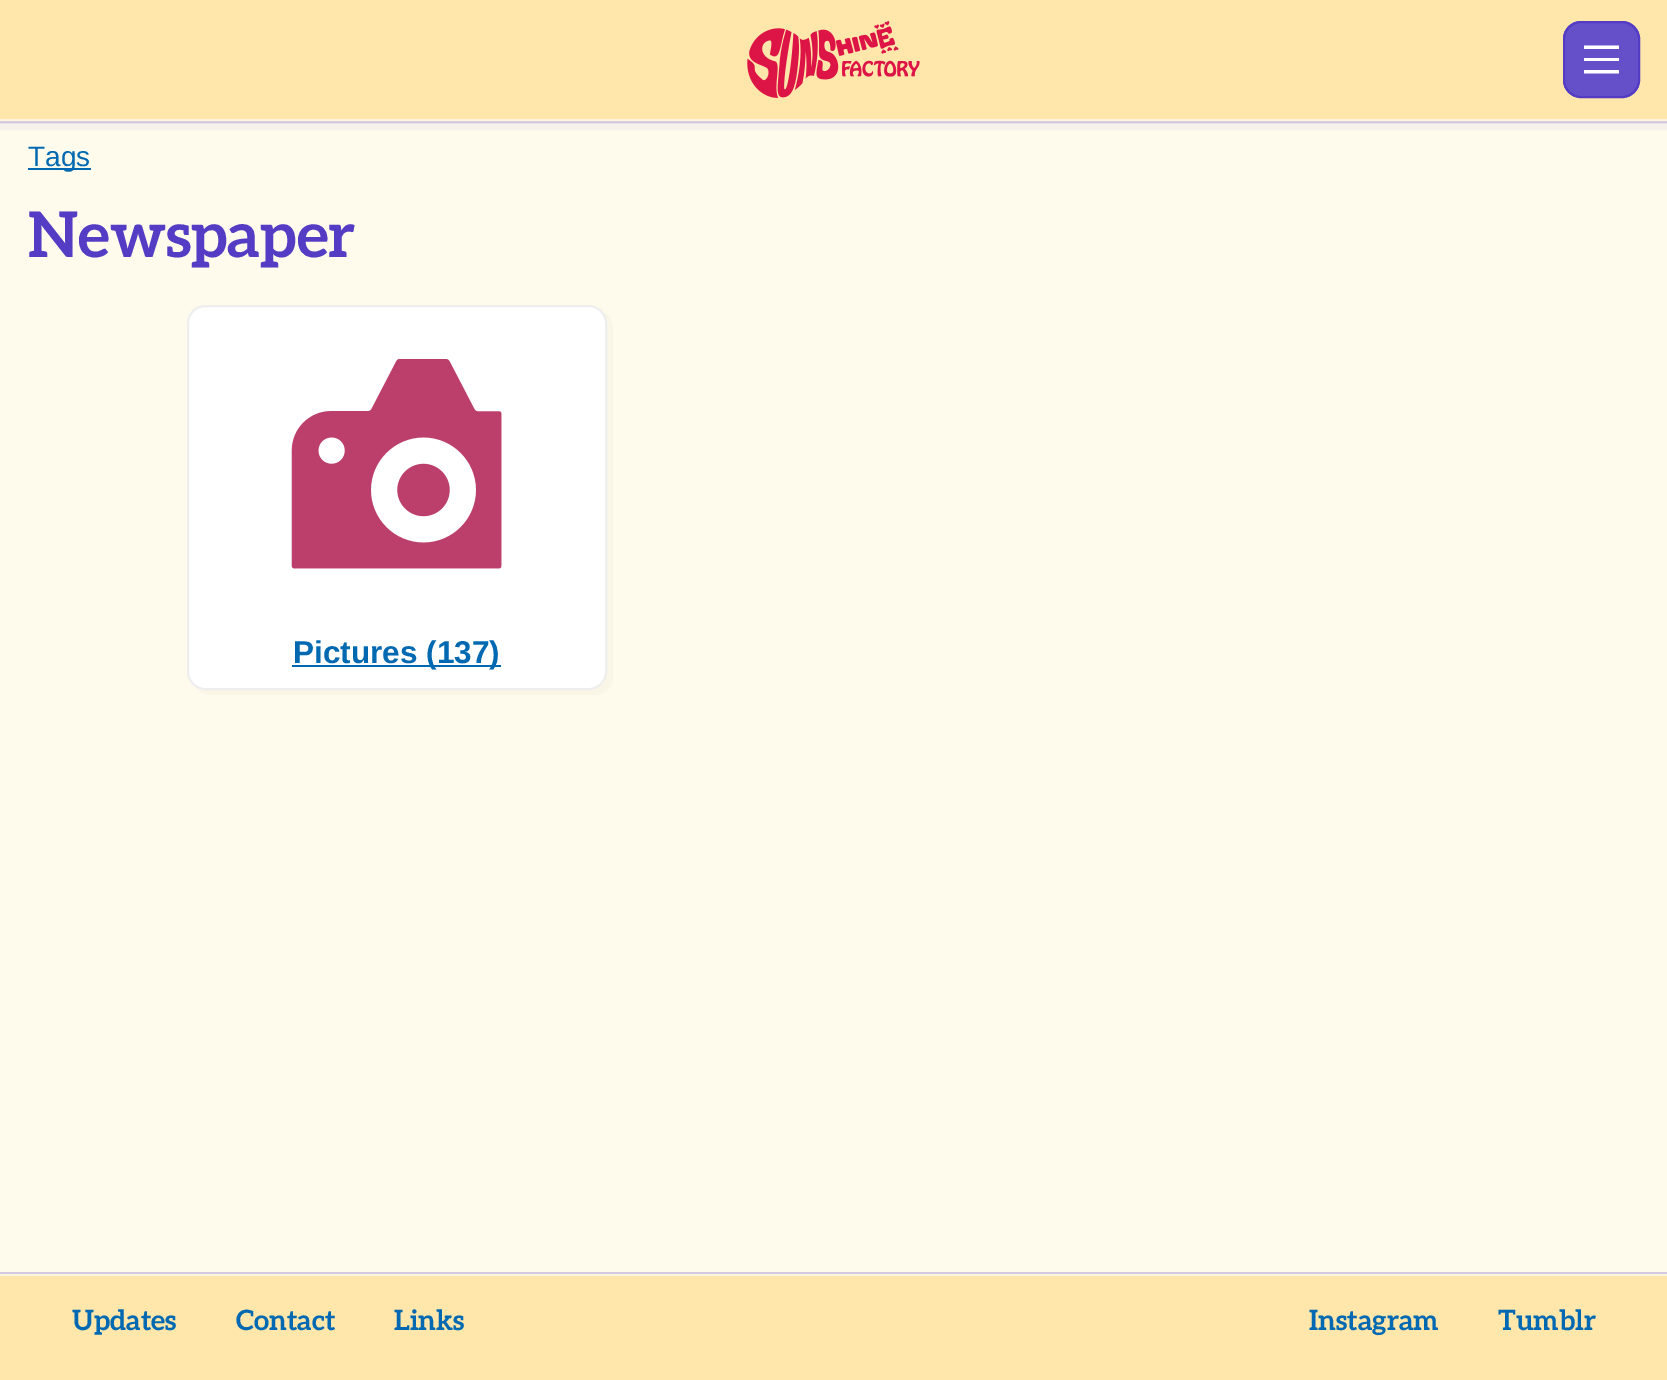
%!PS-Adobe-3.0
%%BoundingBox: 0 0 1667 1380
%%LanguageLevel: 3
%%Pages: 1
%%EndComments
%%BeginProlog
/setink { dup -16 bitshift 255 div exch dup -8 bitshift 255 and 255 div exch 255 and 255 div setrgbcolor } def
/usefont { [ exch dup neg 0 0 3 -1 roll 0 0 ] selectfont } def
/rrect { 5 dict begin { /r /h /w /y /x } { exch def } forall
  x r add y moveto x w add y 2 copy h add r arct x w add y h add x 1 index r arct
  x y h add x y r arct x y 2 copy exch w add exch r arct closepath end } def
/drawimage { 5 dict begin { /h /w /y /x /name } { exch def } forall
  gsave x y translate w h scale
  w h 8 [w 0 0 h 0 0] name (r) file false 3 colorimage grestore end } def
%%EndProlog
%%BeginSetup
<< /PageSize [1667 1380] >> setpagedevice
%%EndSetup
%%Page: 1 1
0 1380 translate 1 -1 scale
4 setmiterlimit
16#FFFBEC setink
0 0 1667 1380 rectfill
16#F6F1EA setink
11 setlinewidth
-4.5 -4.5 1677 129 rectstroke
16#CEC4E1 setink
4 setlinewidth
-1 -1 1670 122 rectstroke
16#FFF5DC setink
2 setlinewidth
-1 -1 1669 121 rectstroke
16#FFE6AA setink
0 0 1667 119 rectfill
(img1.raw) 747 21 173 77 drawimage
16#6550CA setink
1563 21 77 77 18 rrect fill
16#FFFFFF setink
1584 45.5 moveto 1584 49 lineto 1619 49 lineto 1619 45.5 lineto closepath 1584 58 moveto 1584 61 lineto 1619 61 lineto 1619 58 lineto closepath 1584 70 moveto 1584 73.5 lineto 1619 73.5 lineto 1619 70 lineto closepath fill
16#543CC4 setink
1564 22 75 75 17 rrect stroke
16#0069B1 setink
28 168 63 2 rectfill
/LiberationSans-Regular 28 usefont
28 166 moveto (Tags) show
/Aleo-Bold 63 usefont
16#543CC4 setink
28 257 moveto (Newspaper) show
16#FAF6E7 setink
196 687 moveto 199 692 205 695 211 695 curveto 595 695 lineto 605 695 613 687 613 677 curveto 613 328 lineto 613 322 610 316 605 313 curveto 606 315 607 319 607 322 curveto 607 672 lineto 607 682 599 690 590 690 curveto 205 690 lineto 202 690 199 689 196 687 curveto closepath fill
16#FFFFFF setink
188 306 418 383 17 rrect gsave fill grestore
16#EEEEEE setink
stroke
(img2.raw) 291 358 211 211 drawimage
16#0069B1 setink
292 665 209 2 rectfill
/LiberationSans-Bold 31.5 usefont
293 663 moveto (Pictures \(137\)) show
16#D4CBE2 setink
4 setlinewidth
-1 1274 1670 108 rectstroke
16#FFF5DC setink
2 setlinewidth
-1 1275 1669 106 rectstroke
16#FFE6AA setink
0 1276 1667 104 rectfill
/Aleo-Bold 28 usefont
16#0069B1 setink
[
    [(Updates) 72 1330]
    [(Contact) 236 1330]
    [(Links) 394 1330]
    [(Instagram) 1309 1330]
    [(Tumblr) 1498 1330]
] { aload pop moveto show } forall
showpage
%%EOF
